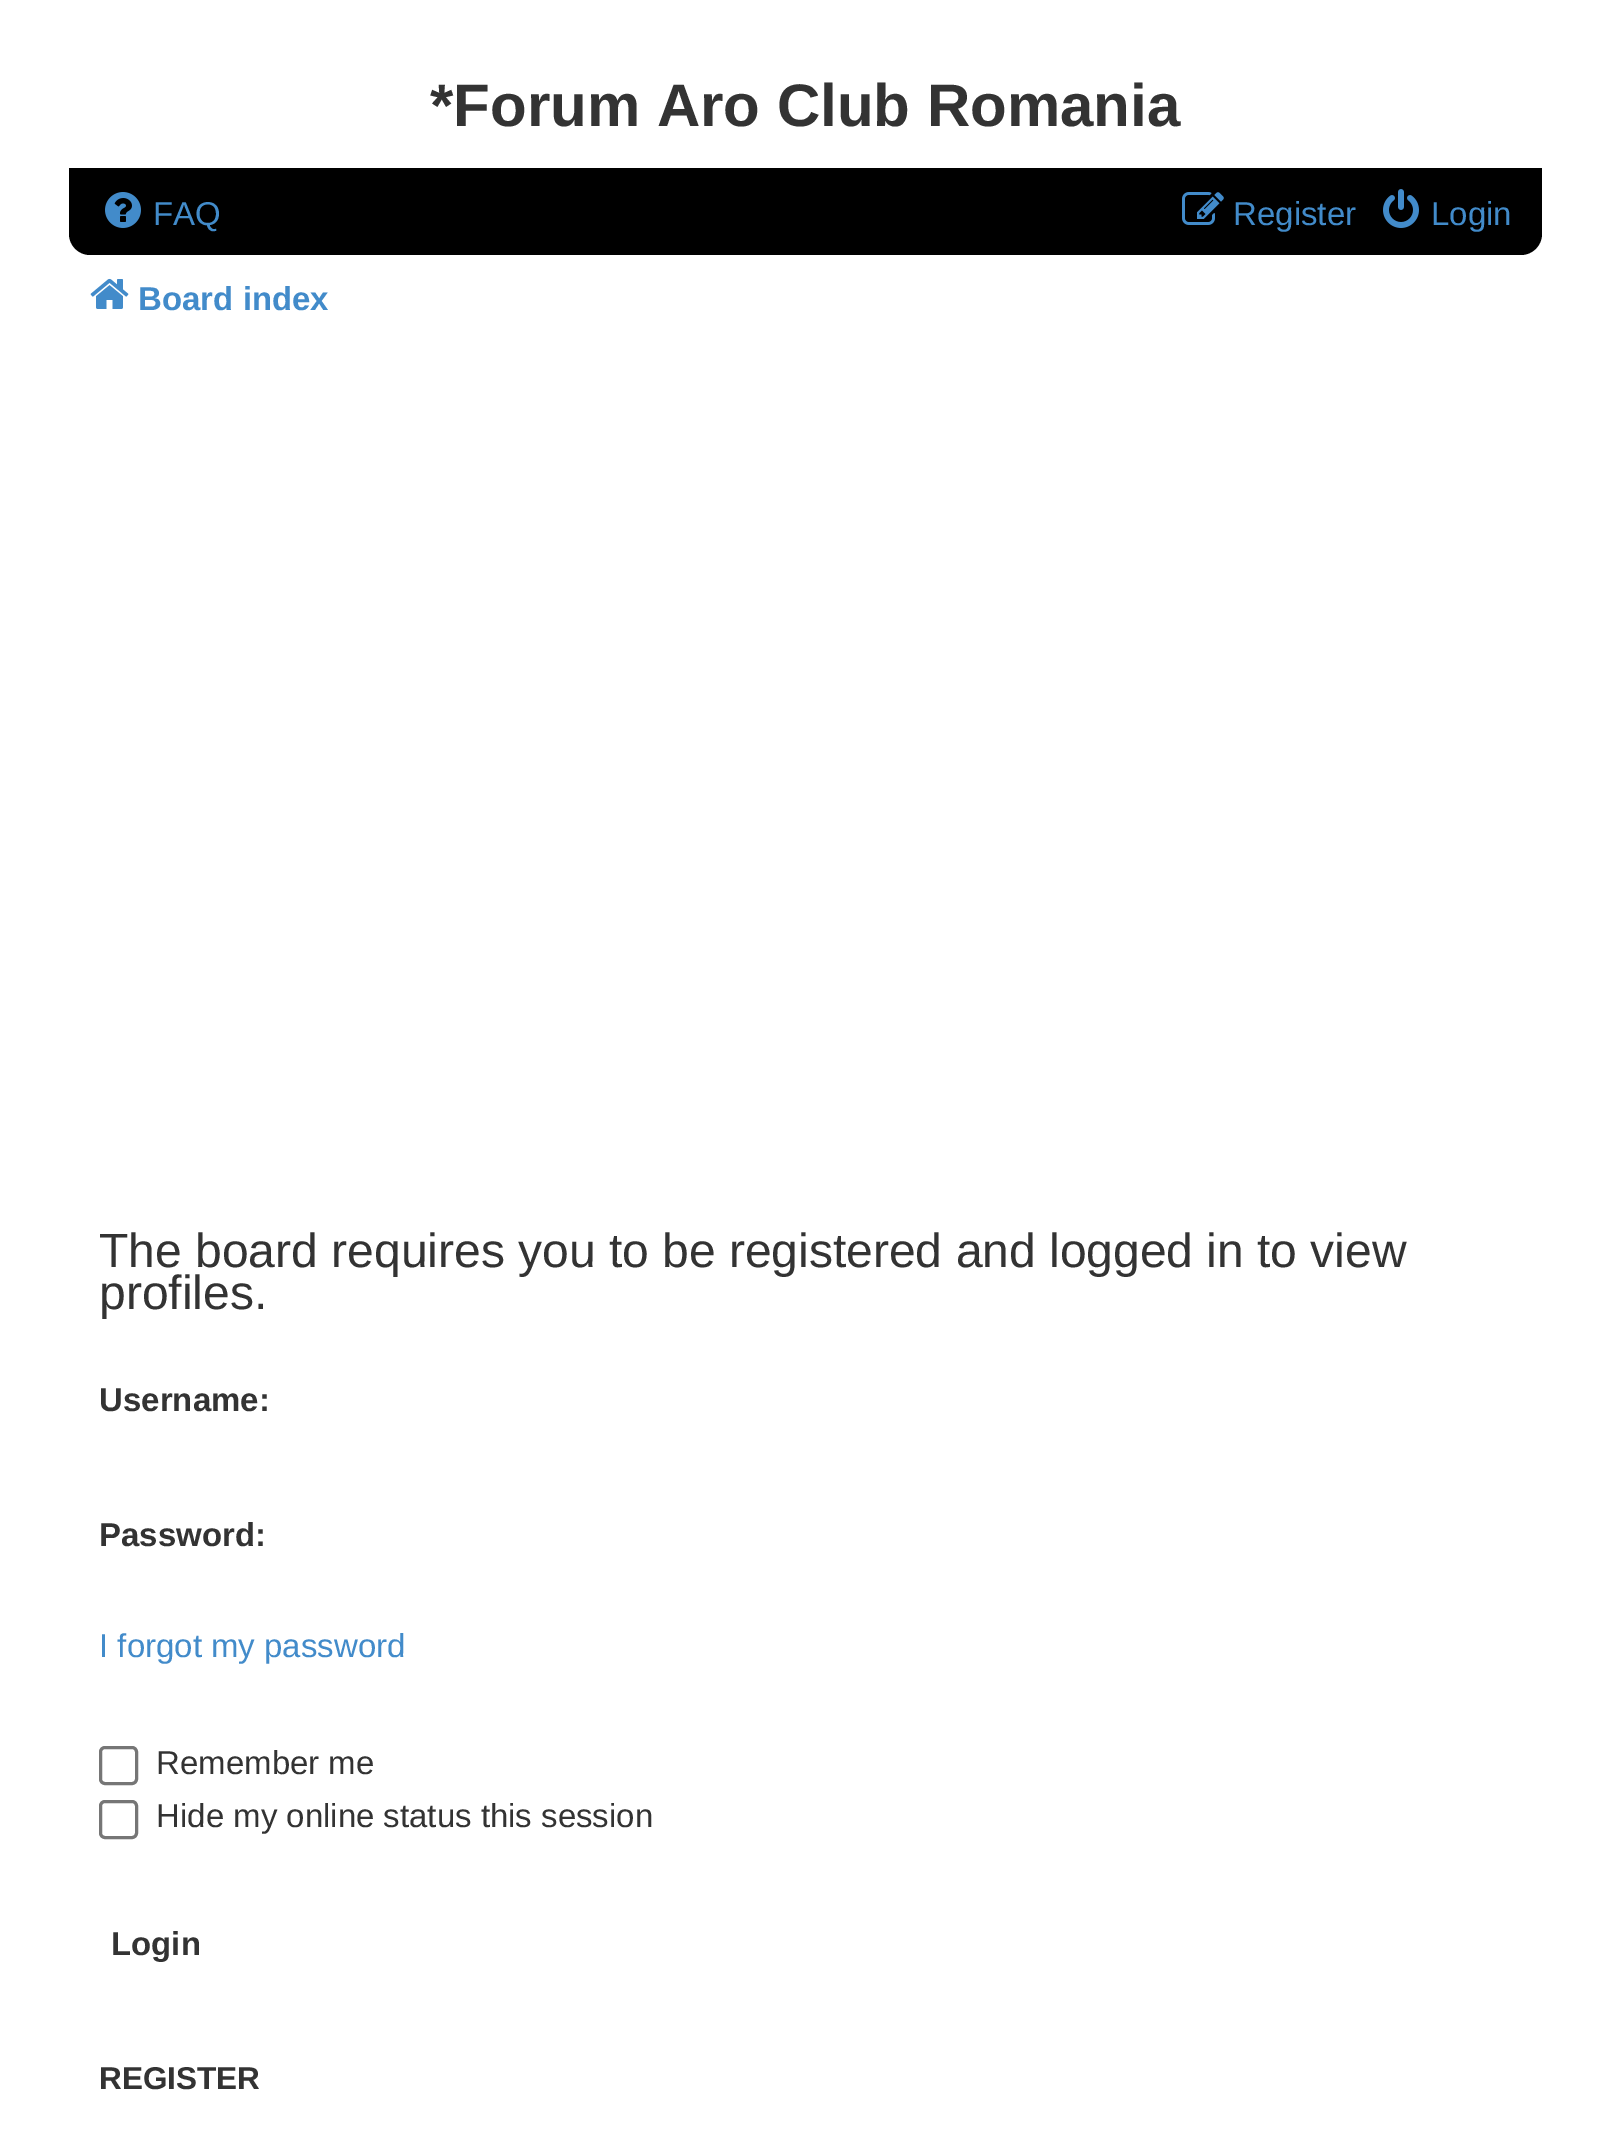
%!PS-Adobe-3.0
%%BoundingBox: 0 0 1610 2136
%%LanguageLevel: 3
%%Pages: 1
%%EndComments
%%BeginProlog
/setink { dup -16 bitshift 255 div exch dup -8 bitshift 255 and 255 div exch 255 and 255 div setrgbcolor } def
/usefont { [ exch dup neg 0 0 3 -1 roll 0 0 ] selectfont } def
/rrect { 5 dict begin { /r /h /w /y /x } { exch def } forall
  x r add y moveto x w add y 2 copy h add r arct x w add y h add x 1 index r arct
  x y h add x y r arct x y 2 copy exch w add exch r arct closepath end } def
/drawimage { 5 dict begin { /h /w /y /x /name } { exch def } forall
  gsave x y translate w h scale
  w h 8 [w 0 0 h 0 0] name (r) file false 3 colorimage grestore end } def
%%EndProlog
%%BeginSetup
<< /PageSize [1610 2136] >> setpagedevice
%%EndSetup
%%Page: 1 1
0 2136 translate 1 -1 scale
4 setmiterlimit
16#FFFFFF setink
0 0 1610 2136 rectfill
/LiberationSans-Bold 60 usefont
16#333333 setink
430 126 moveto (*Forum Aro Club Romania) show
16#000000 setink
69 168 moveto 1542 168 lineto 1542 234 lineto 1542 245.5 1532.5 255 1521 255 curveto 90 255 lineto 78.5 255 69 245.5 69 234 curveto closepath fill
(img1.raw) 105 192 36 36 drawimage
/LiberationSans-Regular 33 usefont
16#428BCA setink
153 225 moveto (FAQ) show
(img2.raw) 1182 192 42 33 drawimage
1233 225 moveto (Register) show
(img3.raw) 1383 189 36 39 drawimage
1431 225 moveto (Login) show
(img4.raw) 90 278 39 31 drawimage
/LiberationSans-Bold 33 usefont
138 310 moveto (Board index) show
/LiberationSans-Regular 48 usefont
16#333333 setink
99 1267 moveto (The board requires you to be registered and logged in to view) show
99 1309 moveto (profiles.) show
/LiberationSans-Bold 33 usefont
99 1411 moveto (Username:) show
99 1546 moveto (Password:) show
/LiberationSans-Regular 33 usefont
16#428BCA setink
99 1657 moveto (I forgot my password) show
16#767676 setink
3 setlinewidth
100.5 1747.5 36 36 4.5 rrect stroke
16#333333 setink
156 1774 moveto (Remember me) show
16#767676 setink
100.5 1801.5 36 36 4.5 rrect stroke
16#333333 setink
156 1827 moveto (Hide my online status this session) show
/LiberationSans-Bold 33 usefont
111 1955 moveto (Login) show
/LiberationSans-Bold 31.5 usefont
99 2089 moveto (REGISTER) show
showpage
%%EOF
